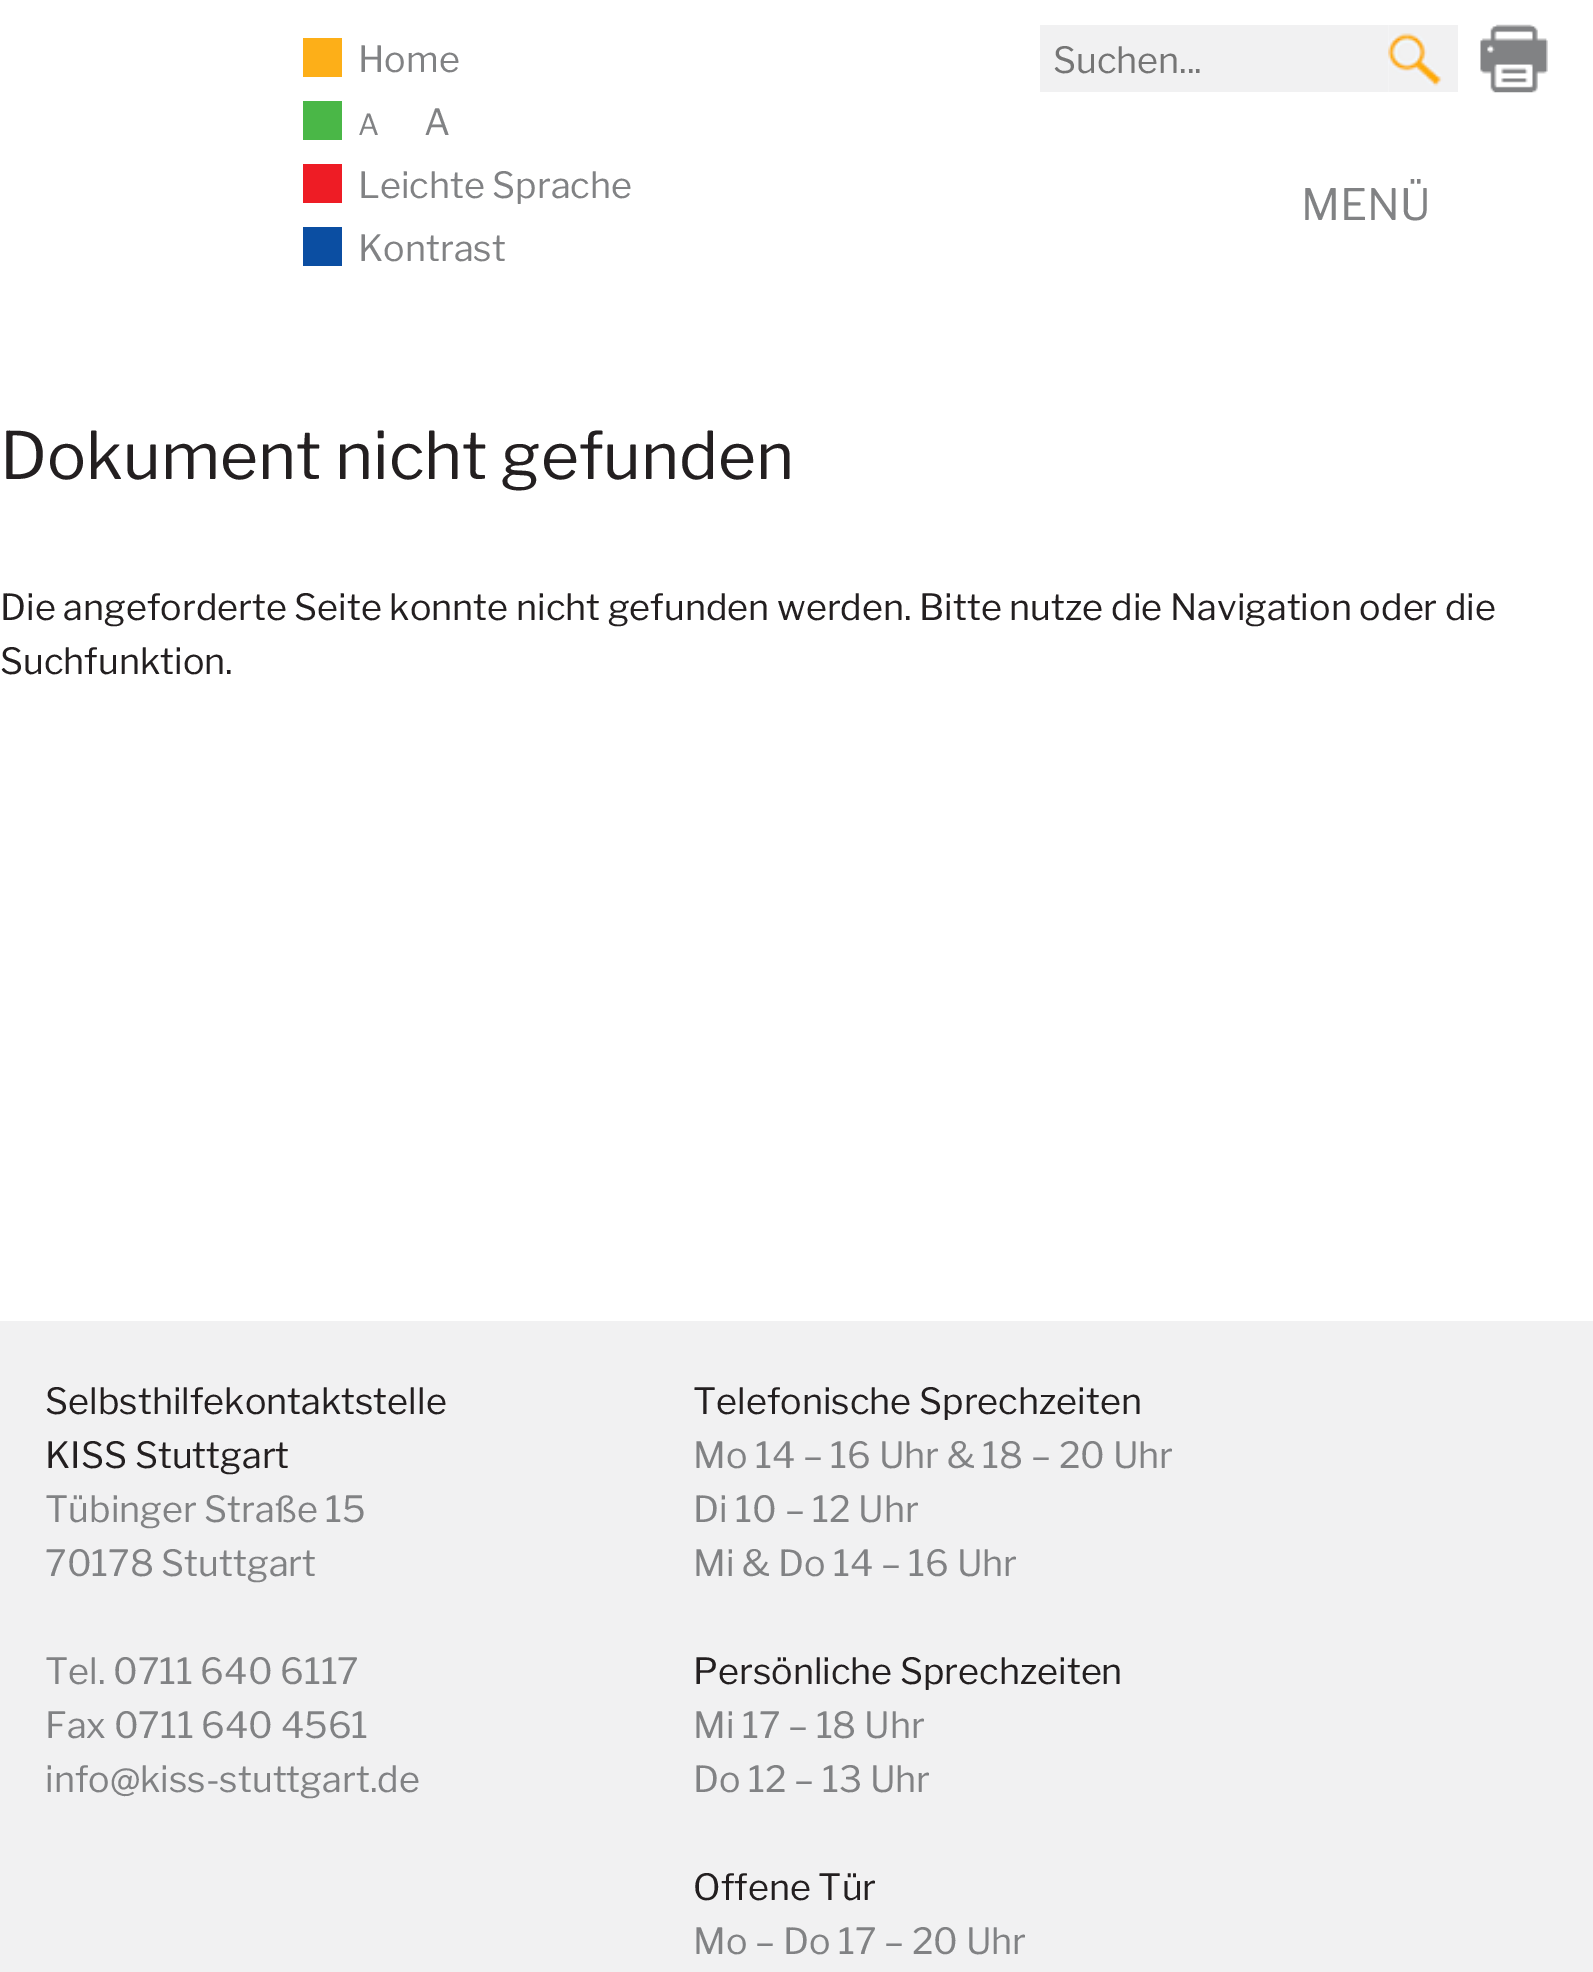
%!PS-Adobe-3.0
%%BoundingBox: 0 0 1593 1972
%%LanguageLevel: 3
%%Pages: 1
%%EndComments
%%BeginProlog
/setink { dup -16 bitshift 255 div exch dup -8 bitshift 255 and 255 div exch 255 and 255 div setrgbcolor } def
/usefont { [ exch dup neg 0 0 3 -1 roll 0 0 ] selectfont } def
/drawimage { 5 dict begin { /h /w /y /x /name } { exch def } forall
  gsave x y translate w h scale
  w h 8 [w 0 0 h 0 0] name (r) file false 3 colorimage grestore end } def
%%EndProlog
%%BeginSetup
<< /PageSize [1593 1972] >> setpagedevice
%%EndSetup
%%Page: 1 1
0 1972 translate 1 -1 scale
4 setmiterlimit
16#FFFFFF setink
0 0 1593 1972 rectfill
16#FDAF18 setink
303 38 39 39 rectfill
/LibreFranklin-Regular 36 usefont
16#818284 setink
358 72 moveto (Home) show
16#4AB747 setink
303 101 39 39 rectfill
/LibreFranklin-Regular 29 usefont
16#818284 setink
358 135 moveto (A) show
/LibreFranklin-Regular 36 usefont
424 135 moveto (A) show
16#EE1C25 setink
303 164 39 39 rectfill
16#818284 setink
358 198 moveto (Leichte Sprache) show
16#0B4EA2 setink
303 227 39 39 rectfill
16#818284 setink
358 261 moveto (Kontrast) show
16#F1F1F2 setink
1040 25 348 67 rectfill
16#757575 setink
1053 73 moveto (Suchen...) show
(img1.raw) 1388 25 70 67 drawimage
(img2.raw) 1480 24 68 69 drawimage
/LibreFranklin-Regular 43 usefont
16#818284 setink
1301 220 moveto (MENÜ) show
/LibreFranklin-Regular 65.25 usefont
16#231F20 setink
0 479 moveto (Dokument nicht gefunden) show
/LibreFranklin-Regular 36 usefont
0 620 moveto (Die angeforderte Seite konnte nicht gefunden werden. Bitte nutze die Navigation oder die) show
0 674 moveto (Suchfunktion.) show
16#F1F1F2 setink
0 1321 1593 651 rectfill
16#231F20 setink
45 1414 moveto (Selbsthilfekontaktstelle) show
45 1468 moveto (KISS Stuttgart) show
16#818284 setink
[
    [(Tübinger Straße 15) 45 1522]
    [(70178 Stuttgart) 45 1576]
    [(Tel. 0711 640 6117) 45 1684]
    [(Fax 0711 640 4561) 45 1738]
    [(info@kiss-stuttgart.de) 45 1792]
] { aload pop moveto show } forall
16#231F20 setink
693 1414 moveto (Telefonische Sprechzeiten) show
16#818284 setink
[
    [(Mo 14 – 16 Uhr & 18 – 20 Uhr) 693 1468]
    [(Di 10 – 12 Uhr) 693 1522]
    [(Mi & Do 14 – 16 Uhr) 693 1576]
] { aload pop moveto show } forall
16#231F20 setink
693 1684 moveto (Persönliche Sprechzeiten) show
16#818284 setink
693 1738 moveto (Mi 17 – 18 Uhr) show
693 1792 moveto (Do 12 – 13 Uhr) show
16#231F20 setink
693 1900 moveto (Offene Tür) show
16#818284 setink
693 1954 moveto (Mo – Do 17 – 20 Uhr) show
showpage
%%EOF
